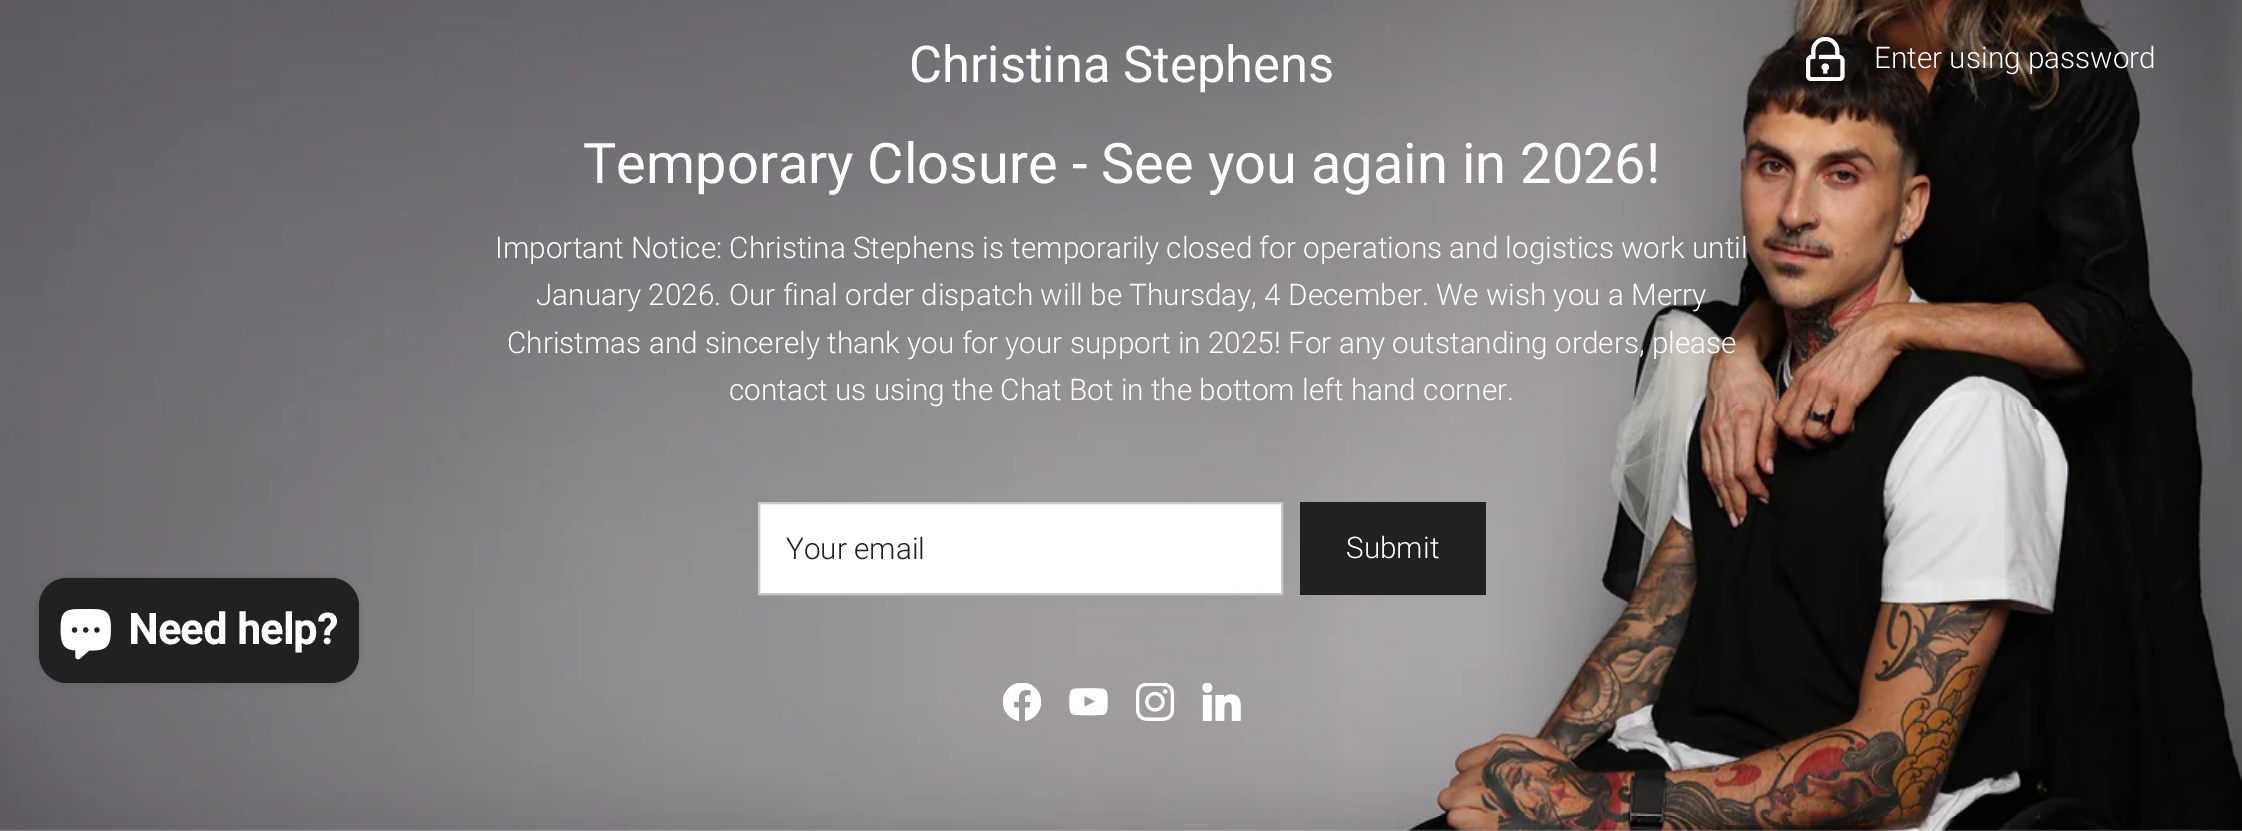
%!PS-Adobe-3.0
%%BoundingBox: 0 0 2242 831
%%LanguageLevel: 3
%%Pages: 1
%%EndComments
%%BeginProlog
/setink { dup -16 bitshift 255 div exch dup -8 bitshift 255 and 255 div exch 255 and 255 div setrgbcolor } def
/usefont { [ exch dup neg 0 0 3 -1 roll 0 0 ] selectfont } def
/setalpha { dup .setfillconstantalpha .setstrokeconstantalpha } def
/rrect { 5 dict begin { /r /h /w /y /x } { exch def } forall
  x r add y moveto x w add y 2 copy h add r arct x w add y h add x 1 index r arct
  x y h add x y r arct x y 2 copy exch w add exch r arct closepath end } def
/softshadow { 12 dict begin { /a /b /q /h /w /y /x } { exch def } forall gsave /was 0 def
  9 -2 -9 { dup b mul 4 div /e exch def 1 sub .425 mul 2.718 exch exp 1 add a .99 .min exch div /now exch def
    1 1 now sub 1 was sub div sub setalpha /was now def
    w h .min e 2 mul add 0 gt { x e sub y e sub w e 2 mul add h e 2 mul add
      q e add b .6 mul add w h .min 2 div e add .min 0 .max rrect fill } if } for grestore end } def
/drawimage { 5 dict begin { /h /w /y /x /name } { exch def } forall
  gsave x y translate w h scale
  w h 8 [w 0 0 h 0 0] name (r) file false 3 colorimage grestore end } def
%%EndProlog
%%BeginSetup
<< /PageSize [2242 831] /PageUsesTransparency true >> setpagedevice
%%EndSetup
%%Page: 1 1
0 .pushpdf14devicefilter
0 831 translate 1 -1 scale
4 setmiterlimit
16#FFFFFF setink
0 0 2242 831 rectfill
(img2.raw) 0 0 2242 831 drawimage
/Roboto-Regular 50.75 usefont
909 82 moveto (Christina Stephens) show
(img1.raw) 1806 37 39 44 drawimage
/Roboto-Light 29.75 usefont
1874 68 moveto (Enter using password) show
/Roboto-Regular 56 usefont
583 183 moveto (Temporary Closure - See you again in 2026!) show
/Roboto-Light 29.75 usefont
[
    [(Important Notice: Christina Stephens is temporarily closed for operations and logistics work until) 495 258]
    [(January 2026. Our final order dispatch will be Thursday, 4 December. We wish you a Merry) 536 305]
    [(Christmas and sincerely thank you for your support in 2025! For any outstanding orders, please) 507 353]
    [(contact us using the Chat Bot in the bottom left hand corner.) 729 400]
] { aload pop moveto show } forall
759 503 moveto 1282 503 lineto 1282 594 lineto 759 594 lineto closepath gsave fill grestore
16#C8C8C8 setink
2 setlinewidth
stroke
16#212121 setink
786 559 moveto (Your email) show
1300 502 186 93 rectfill
16#FFFFFF setink
1346 558 moveto (Submit) show
(img3.raw) 1003 683 38 38 drawimage
(img4.raw) 1069 688 39 28 drawimage
(img5.raw) 1136 683 38 38 drawimage
(img6.raw) 1202 683 39 38 drawimage
16#000000 setink
39 578 320 105 28 4.5 0.15 softshadow
16#212121 setink
39 578 320 105 28 rrect fill
(img7.raw) 60 609 51 51 drawimage
/Roboto-Bold 42 usefont
16#FFFFFF setink
128 644 moveto (Need help?) show
.poppdf14devicefilter showpage
%%EOF
